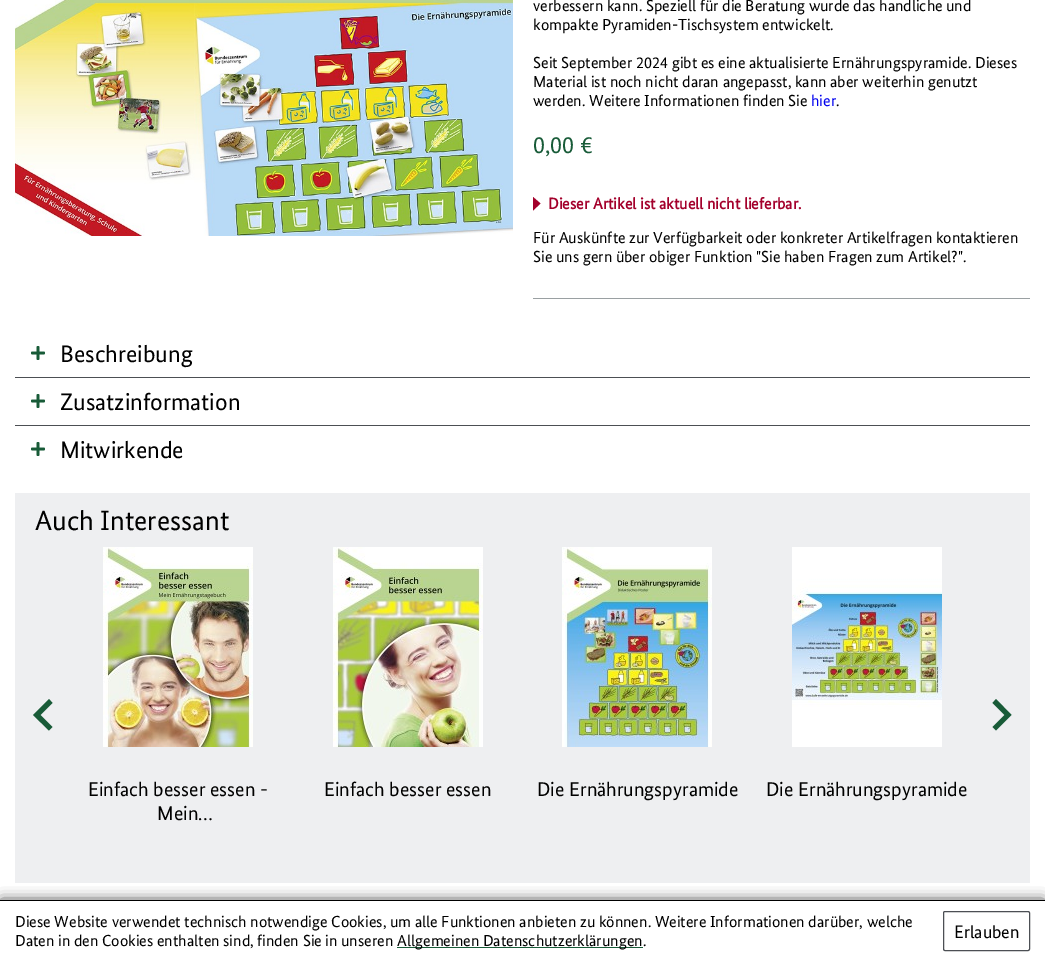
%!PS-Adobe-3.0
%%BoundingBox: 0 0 1045 980
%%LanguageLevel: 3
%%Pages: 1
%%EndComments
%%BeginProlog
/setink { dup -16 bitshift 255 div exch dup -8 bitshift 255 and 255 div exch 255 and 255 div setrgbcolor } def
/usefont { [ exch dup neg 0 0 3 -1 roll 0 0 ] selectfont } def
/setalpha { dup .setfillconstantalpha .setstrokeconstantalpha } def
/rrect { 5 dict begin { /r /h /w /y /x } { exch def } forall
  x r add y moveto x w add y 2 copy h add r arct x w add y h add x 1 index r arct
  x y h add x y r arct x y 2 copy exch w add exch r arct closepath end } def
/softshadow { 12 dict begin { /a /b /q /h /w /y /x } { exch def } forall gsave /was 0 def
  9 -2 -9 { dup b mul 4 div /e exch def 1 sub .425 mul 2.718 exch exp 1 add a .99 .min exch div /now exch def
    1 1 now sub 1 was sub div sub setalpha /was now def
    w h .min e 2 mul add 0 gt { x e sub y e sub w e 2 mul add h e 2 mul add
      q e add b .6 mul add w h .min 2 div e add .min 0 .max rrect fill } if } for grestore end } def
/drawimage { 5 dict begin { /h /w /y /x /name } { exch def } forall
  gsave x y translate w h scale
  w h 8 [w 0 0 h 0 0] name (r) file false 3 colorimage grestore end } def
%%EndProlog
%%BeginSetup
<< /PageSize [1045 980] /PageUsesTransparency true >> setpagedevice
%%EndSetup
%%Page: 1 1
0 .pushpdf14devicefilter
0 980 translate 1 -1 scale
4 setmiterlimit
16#FFFFFF setink
0 0 1045 980 rectfill
(img1.raw) 15 0 498 236 drawimage
/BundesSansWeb-Regular 16 usefont
16#000000 setink
[
    [(verbessern kann. Speziell für die Beratung wurde das handliche und) 533 11]
    [(kompakte Pyramiden-Tischsystem entwickelt.) 533 30]
    [(Seit September 2024 gibt es eine aktualisierte Ernährungspyramide. Dieses) 533 68]
    [(Material ist noch nicht daran angepasst, kann aber weiterhin genutzt) 533 87]
    [(werden. Weitere Informationen finden Sie) 533 106]
] { aload pop moveto show } forall
16#0000EE setink
811 106 moveto (hier) show
16#000000 setink
836 106 moveto (.) show
/BundesSansWeb-Regular 24 usefont
16#185B38 setink
533 153 moveto (0,00 €) show
16#A3002B setink
533 210.5 moveto 533 197 lineto 540.5 203.5 lineto closepath fill
/BundesSansWeb-Bold 16 usefont
548 209 moveto (Dieser Artikel ist aktuell nicht lieferbar.) show
/BundesSansWeb-Regular 16 usefont
16#000000 setink
533 243 moveto (Für Auskünfte zur Verfügbarkeit oder konkreter Artikelfragen kontaktieren) show
533 262 moveto (Sie uns gern über obiger Funktion "Sie haben Fragen zum Artikel?".) show
16#9AA0A2 setink
533 298 497 1 rectfill
(img2.raw) 31 346 14 14 drawimage
/BundesSansWeb-Regular 24 usefont
16#000000 setink
60 362 moveto (Beschreibung) show
16#4C4F54 setink
15 377 1015 1 rectfill
(img2.raw) 31 394 14 14 drawimage
16#000000 setink
60 410 moveto (Zusatzinformation) show
16#4C4F54 setink
15 425 1015 1 rectfill
(img2.raw) 31 442 14 14 drawimage
16#000000 setink
60 458 moveto (Mitwirkende) show
16#EEEFF1 setink
15 493 1015 390 rectfill
/BundesSansWeb-Regular 28 usefont
16#000000 setink
35 530 moveto (Auch Interessant) show
16#185B38 setink
49 699 moveto 52.5 703 lineto 40.5 715 lineto 52.5 727 lineto 49 730.5 lineto 33 715 lineto closepath fill
996 699 moveto 992.5 703 lineto 1004.5 715 lineto 992.5 727 lineto 996 730.5 lineto 1011.5 715 lineto closepath fill
(img3.raw) 103 547 150 200 drawimage
/BundesSansWeb-Regular 20 usefont
16#000000 setink
88 796 moveto (Einfach besser essen -) show
157 820 moveto (Mein…) show
(img4.raw) 333 547 150 200 drawimage
324 796 moveto (Einfach besser essen) show
(img5.raw) 562 547 150 200 drawimage
537 796 moveto (Die Ernährungspyramide) show
(img6.raw) 792 547 150 200 drawimage
766 796 moveto (Die Ernährungspyramide) show
2 902 1041 76 0 7 1 softshadow
16#FFFFFF setink
0 901 1045 79 rectfill
16#000000 setink
0 900 1045 1 rectfill
/BundesSansWeb-Regular 16 usefont
15 927 moveto (Diese Website verwendet technisch notwendige Cookies, um alle Funktionen anbieten zu können. Weitere Informationen darüber, welche) show
15 946 moveto (Daten in den Cookies enthalten sind, finden Sie in unseren) show
16#185B38 setink
397 947 246 1 rectfill
16#000000 setink
397 946 moveto (Allgemeinen Datenschutzerklärungen.) show
16#4C4F54 setink
943.5 911.5 86 39 1.5 rrect stroke
/BundesSansWeb-Regular 18 usefont
16#000000 setink
954 938 moveto (Erlauben) show
.poppdf14devicefilter showpage
%%EOF
